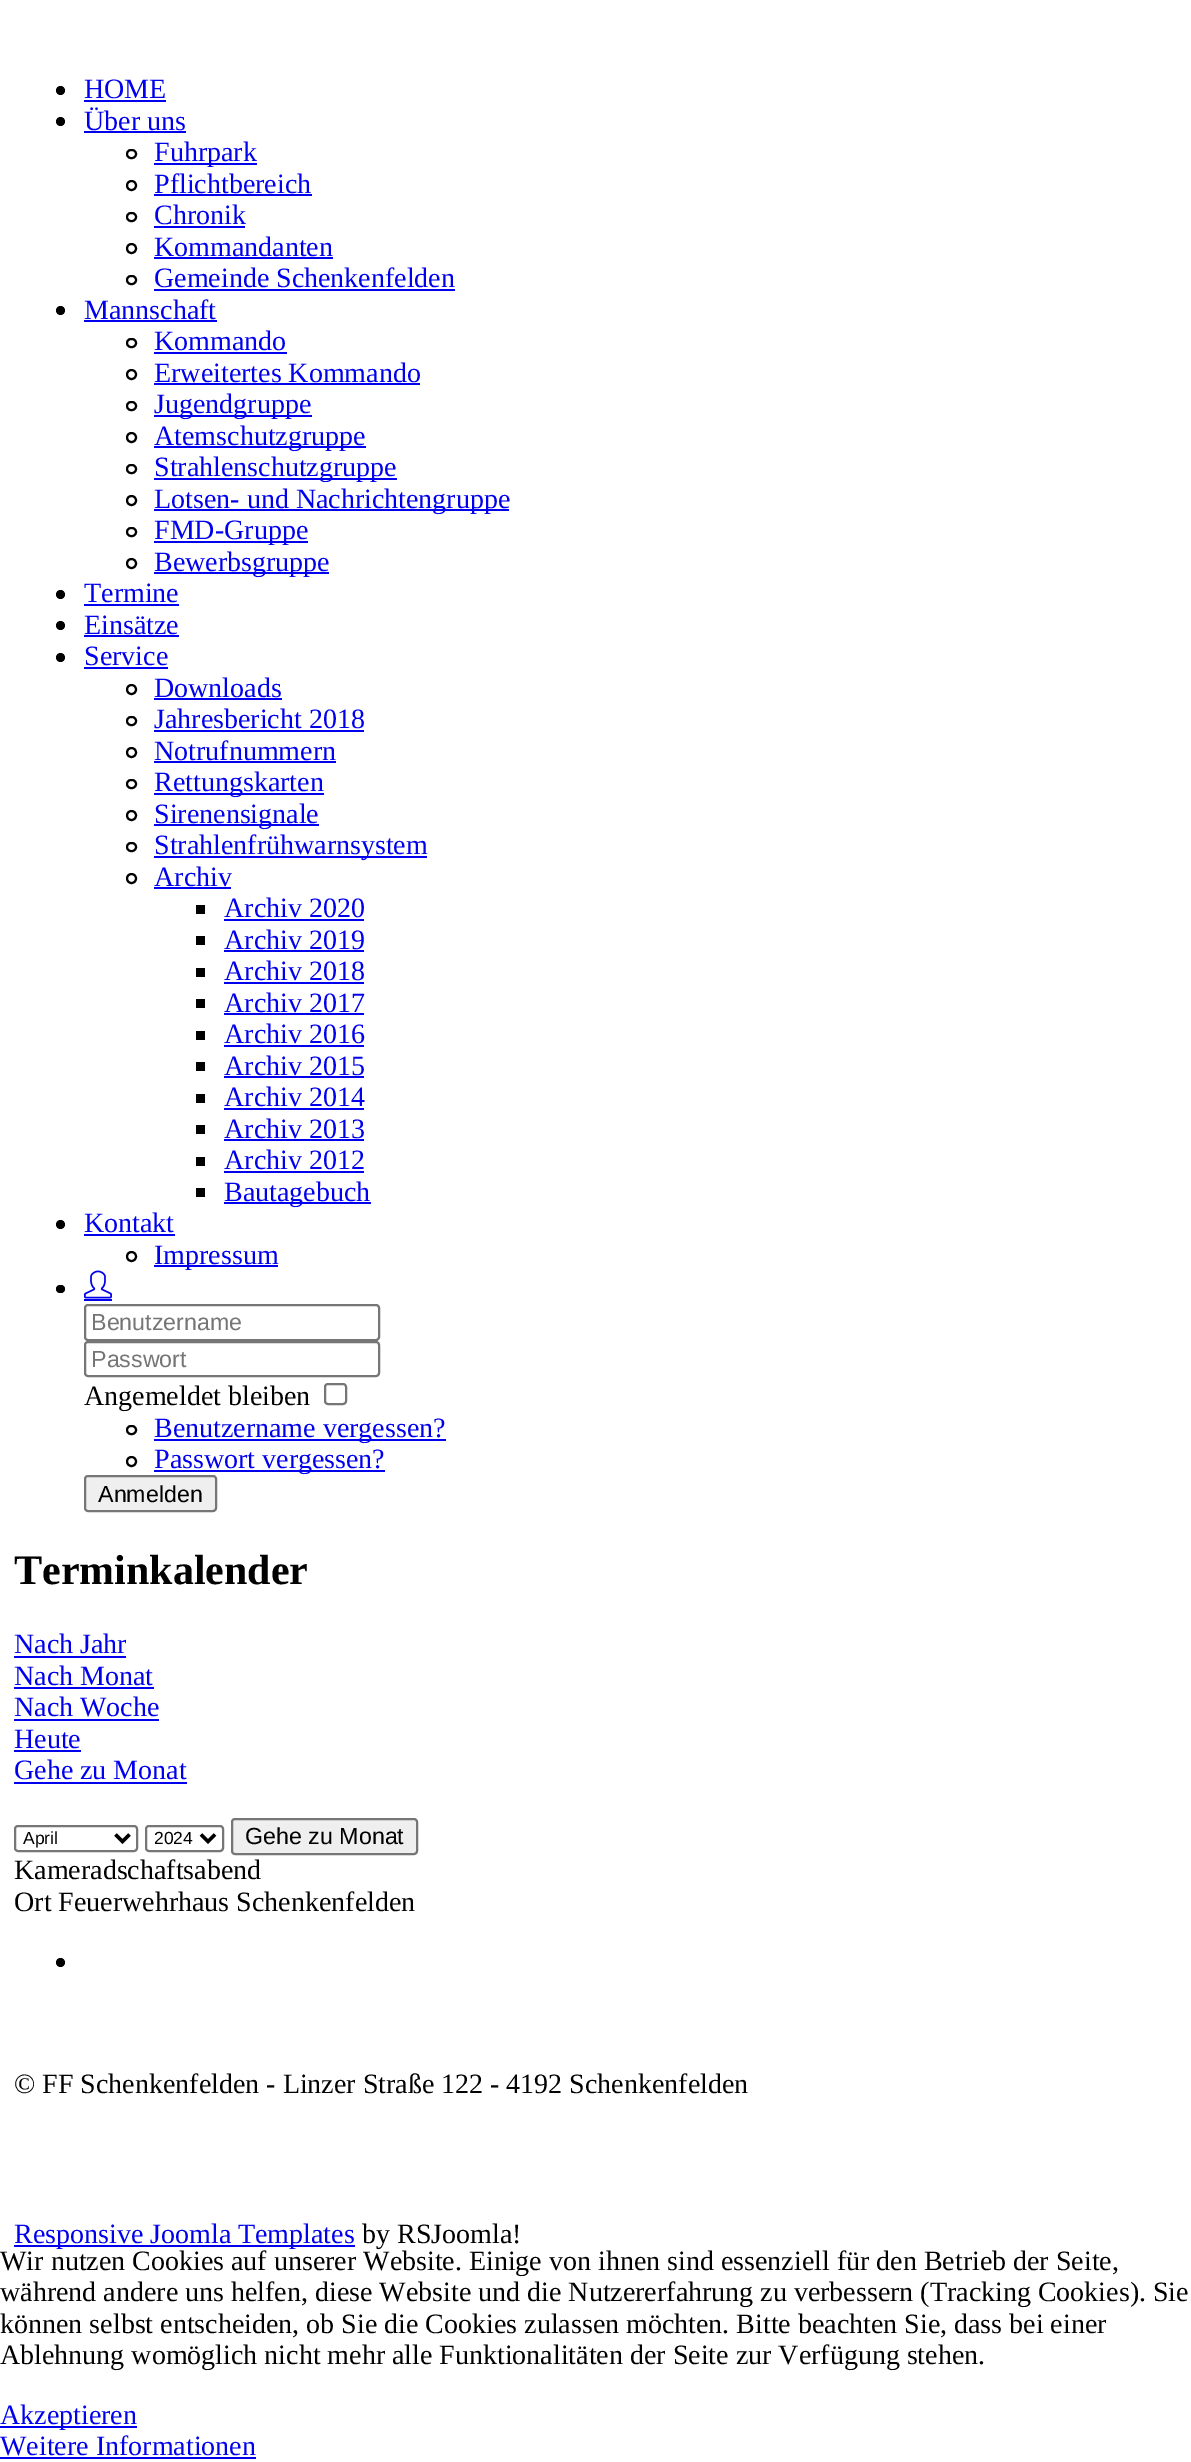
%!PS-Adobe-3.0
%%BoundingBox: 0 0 1191 2462
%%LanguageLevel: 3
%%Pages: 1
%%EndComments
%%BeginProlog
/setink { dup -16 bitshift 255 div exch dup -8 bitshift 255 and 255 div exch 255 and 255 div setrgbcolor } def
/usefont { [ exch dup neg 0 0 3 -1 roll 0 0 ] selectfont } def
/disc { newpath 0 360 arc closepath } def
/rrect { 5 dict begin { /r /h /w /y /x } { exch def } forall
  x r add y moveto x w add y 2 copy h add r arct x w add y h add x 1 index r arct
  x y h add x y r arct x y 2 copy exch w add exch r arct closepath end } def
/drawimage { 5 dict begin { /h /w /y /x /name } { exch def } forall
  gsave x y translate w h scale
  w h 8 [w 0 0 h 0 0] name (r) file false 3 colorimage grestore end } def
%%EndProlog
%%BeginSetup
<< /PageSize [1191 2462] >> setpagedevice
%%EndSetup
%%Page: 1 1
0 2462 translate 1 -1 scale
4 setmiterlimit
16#FFFFFF setink
0 0 1191 2462 rectfill
16#000000 setink
60.5 90.5 4.5 disc fill
/LiberationSerif-Regular 28 usefont
16#0000EE setink
84 98 moveto (HOME) show
84 100 82 2 rectfill
16#000000 setink
60.5 121.5 4.5 disc fill
16#0000EE setink
84 130 moveto (Über uns) show
84 131 102 2 rectfill
16#000000 setink
2 setlinewidth
127 150 9 8 4 rrect stroke
16#0000EE setink
154 163 103 2 rectfill
154 161 moveto (Fuhrpark) show
16#000000 setink
131.5 185.5 4.5 disc stroke
16#0000EE setink
154 193 moveto (Pflichtbereich) show
154 194 158 2 rectfill
16#000000 setink
127 213 9 8 4 rrect stroke
16#0000EE setink
154 224 moveto (Chronik) show
154 226 91 2 rectfill
16#000000 setink
131.5 248.5 4.5 disc stroke
16#0000EE setink
154 256 moveto (Kommandanten) show
154 257 179 2 rectfill
16#000000 setink
127 276 9 8 4 rrect stroke
16#0000EE setink
154 287 moveto (Gemeinde Schenkenfelden) show
154 289 301 2 rectfill
16#000000 setink
60.5 310.5 4.5 disc fill
16#0000EE setink
84 319 moveto (Mannschaft) show
84 320 133 2 rectfill
16#000000 setink
127 339 9 8 4 rrect stroke
16#0000EE setink
154 350 moveto (Kommando) show
154 352 133 2 rectfill
16#000000 setink
131.5 374.5 4.5 disc stroke
16#0000EE setink
154 382 moveto (Erweitertes Kommando) show
154 383 266 2 rectfill
16#000000 setink
127 402 9 8 4 rrect stroke
16#0000EE setink
154 415 158 2 rectfill
154 413 moveto (Jugendgruppe) show
16#000000 setink
131.5 437.5 4.5 disc stroke
16#0000EE setink
154 446 212 2 rectfill
154 445 moveto (Atemschutzgruppe) show
16#000000 setink
127 465 9 8 4 rrect stroke
16#0000EE setink
154 478 243 2 rectfill
154 476 moveto (Strahlenschutzgruppe) show
16#000000 setink
131.5 500.5 4.5 disc stroke
16#0000EE setink
154 509 355 2 rectfill
154 508 moveto (Lotsen- und Nachrichtengruppe) show
16#000000 setink
127 528 9 8 4 rrect stroke
16#0000EE setink
154 541 154 2 rectfill
154 539 moveto (FMD-Gruppe) show
16#000000 setink
131.5 563.5 4.5 disc stroke
16#0000EE setink
154 572 175 2 rectfill
154 571 moveto (Bewerbsgruppe) show
16#000000 setink
60.5 594.5 4.5 disc fill
16#0000EE setink
84 602 moveto (Termine) show
84 604 95 2 rectfill
16#000000 setink
60.5 625.5 4.5 disc fill
16#0000EE setink
84 634 moveto (Einsätze) show
84 635 95 2 rectfill
16#000000 setink
60.5 657.5 4.5 disc fill
16#0000EE setink
84 665 moveto (Service) show
84 667 84 2 rectfill
16#000000 setink
131.5 689.5 4.5 disc stroke
16#0000EE setink
154 697 moveto (Downloads) show
154 698 128 2 rectfill
16#000000 setink
127 717 9 8 4 rrect stroke
16#0000EE setink
154 728 moveto (Jahresbericht 2018) show
154 730 210 2 rectfill
16#000000 setink
131.5 752.5 4.5 disc stroke
16#0000EE setink
154 760 moveto (Notrufnummern) show
154 761 182 2 rectfill
16#000000 setink
127 780 9 8 4 rrect stroke
16#0000EE setink
154 793 170 2 rectfill
154 791 moveto (Rettungskarten) show
16#000000 setink
131.5 815.5 4.5 disc stroke
16#0000EE setink
154 824 165 2 rectfill
154 823 moveto (Sirenensignale) show
16#000000 setink
127 843 9 8 4 rrect stroke
16#0000EE setink
154 856 273 2 rectfill
154 854 moveto (Strahlenfrühwarnsystem) show
16#000000 setink
131.5 878.5 4.5 disc stroke
16#0000EE setink
154 886 moveto (Archiv) show
154 887 77 2 rectfill
16#000000 setink
196 905 9 9 rectfill
16#0000EE setink
224 917 moveto (Archiv 2020) show
224 919 140 2 rectfill
16#000000 setink
196 936 9 9 rectfill
16#0000EE setink
224 949 moveto (Archiv 2019) show
224 950 140 2 rectfill
16#000000 setink
196 968 9 9 rectfill
16#0000EE setink
224 980 moveto (Archiv 2018) show
224 982 140 2 rectfill
16#000000 setink
196 999 9 9 rectfill
16#0000EE setink
224 1012 moveto (Archiv 2017) show
224 1013 140 2 rectfill
16#000000 setink
196 1031 9 9 rectfill
16#0000EE setink
224 1043 moveto (Archiv 2016) show
224 1045 140 2 rectfill
16#000000 setink
196 1062 9 9 rectfill
16#0000EE setink
224 1075 moveto (Archiv 2015) show
224 1076 140 2 rectfill
16#000000 setink
196 1094 9 9 rectfill
16#0000EE setink
224 1106 moveto (Archiv 2014) show
224 1108 140 2 rectfill
16#000000 setink
196 1125 9 9 rectfill
16#0000EE setink
224 1138 moveto (Archiv 2013) show
224 1139 140 2 rectfill
16#000000 setink
196 1157 9 9 rectfill
16#0000EE setink
224 1169 moveto (Archiv 2012) show
[
    [224 1171 140 2 16#0000EE]
    [196 1188 9 9 16#000000]
    [224 1202 147 2 16#0000EE]
] { aload pop setink rectfill } forall
224 1201 moveto (Bautagebuch) show
16#000000 setink
60.5 1224.5 4.5 disc fill
16#0000EE setink
84 1232 moveto (Kontakt) show
84 1234 91 2 rectfill
16#000000 setink
131.5 1256.5 4.5 disc stroke
16#0000EE setink
154 1265 124 2 rectfill
154 1264 moveto (Impressum) show
16#000000 setink
56 1285 9 8 4 rrect fill
(img1.raw) 84 1270 28 29 drawimage
16#0000EE setink
84 1299 28 2 rectfill
16#767676 setink
85 1305 294 35 3 rrect stroke
/LiberationSans-Regular 23.25 usefont
16#757575 setink
91 1330 moveto (Benutzername) show
16#767676 setink
85 1342 294 34 3 rrect stroke
16#757575 setink
91 1367 moveto (Passwort) show
/LiberationSerif-Regular 28 usefont
16#000000 setink
84 1405 moveto (Angemeldet bleiben) show
16#767676 setink
325 1384 21 20 3 rrect stroke
16#000000 setink
127 1426 9 8 4 rrect stroke
16#0000EE setink
154 1439 292 2 rectfill
154 1437 moveto (Benutzername vergessen?) show
16#000000 setink
131.5 1461.5 4.5 disc stroke
16#0000EE setink
154 1470 231 2 rectfill
154 1468 moveto (Passwort vergessen?) show
16#EFEFEF setink
85 1476 131 35 3 rrect gsave fill grestore
16#767676 setink
stroke
/LiberationSans-Regular 23.25 usefont
16#000000 setink
98 1502 moveto (Anmelden) show
/LiberationSerif-Bold 42 usefont
14 1584 moveto (Terminkalender) show
/LiberationSerif-Regular 28 usefont
16#0000EE setink
14 1653 moveto (Nach Jahr) show
14 1656 112 2 rectfill
14 1685 moveto (Nach Monat) show
14 1687 140 2 rectfill
14 1716 moveto (Nach Woche) show
14 1719 145 2 rectfill
14 1748 moveto (Heute) show
14 1750 67 2 rectfill
14 1779 moveto (Gehe zu Monat) show
14 1782 173 2 rectfill
16#767676 setink
15 1826 122 25 3 rrect stroke
16#000000 setink
3.5 setlinewidth
115.5 1834.5 moveto 122.5 1841.5 lineto 129.5 1834.5 lineto stroke
/LiberationSans-Regular 17.5 usefont
23 1844 moveto (April) show
16#767676 setink
2 setlinewidth
146 1826 77 25 3 rrect stroke
16#000000 setink
3.5 setlinewidth
201 1834.5 moveto 208 1841.5 lineto 215 1834.5 lineto stroke
154 1844 moveto (2024) show
16#EFEFEF setink
232 1819 185 35 3 rrect gsave fill grestore
16#767676 setink
2 setlinewidth
stroke
/LiberationSans-Regular 23.25 usefont
16#000000 setink
245 1844 moveto (Gehe zu Monat) show
/LiberationSerif-Regular 28 usefont
14 1879 moveto (Kameradschaftsabend) show
14 1911 moveto (Ort Feuerwehrhaus Schenkenfelden) show
60.5 1962.5 4.5 disc fill
14 2093 moveto (© FF Schenkenfelden - Linzer Straße 122 - 4192 Schenkenfelden) show
16#0000EE setink
14 2245 341 2 rectfill
14 2243 moveto (Responsive Joomla Templates) show
16#000000 setink
[
    [(by RSJoomla!) 362 2243]
    [(Wir nutzen Cookies auf unserer Website. Einige von ihnen sind essenziell für den Betrieb der Seite,) 0 2270]
    [(während andere uns helfen, diese Website und die Nutzererfahrung zu verbessern \(Tracking Cookies\). Sie) 0 2301]
    [(können selbst entscheiden, ob Sie die Cookies zulassen möchten. Bitte beachten Sie, dass bei einer) 0 2333]
    [(Ablehnung womöglich nicht mehr alle Funktionalitäten der Seite zur Verfügung stehen.) 0 2364]
] { aload pop moveto show } forall
16#0000EE setink
0 2426 137 2 rectfill
0 2424 moveto (Akzeptieren) show
0 2455 moveto (Weitere Informationen) show
0 2457 256 2 rectfill
showpage
%%EOF
